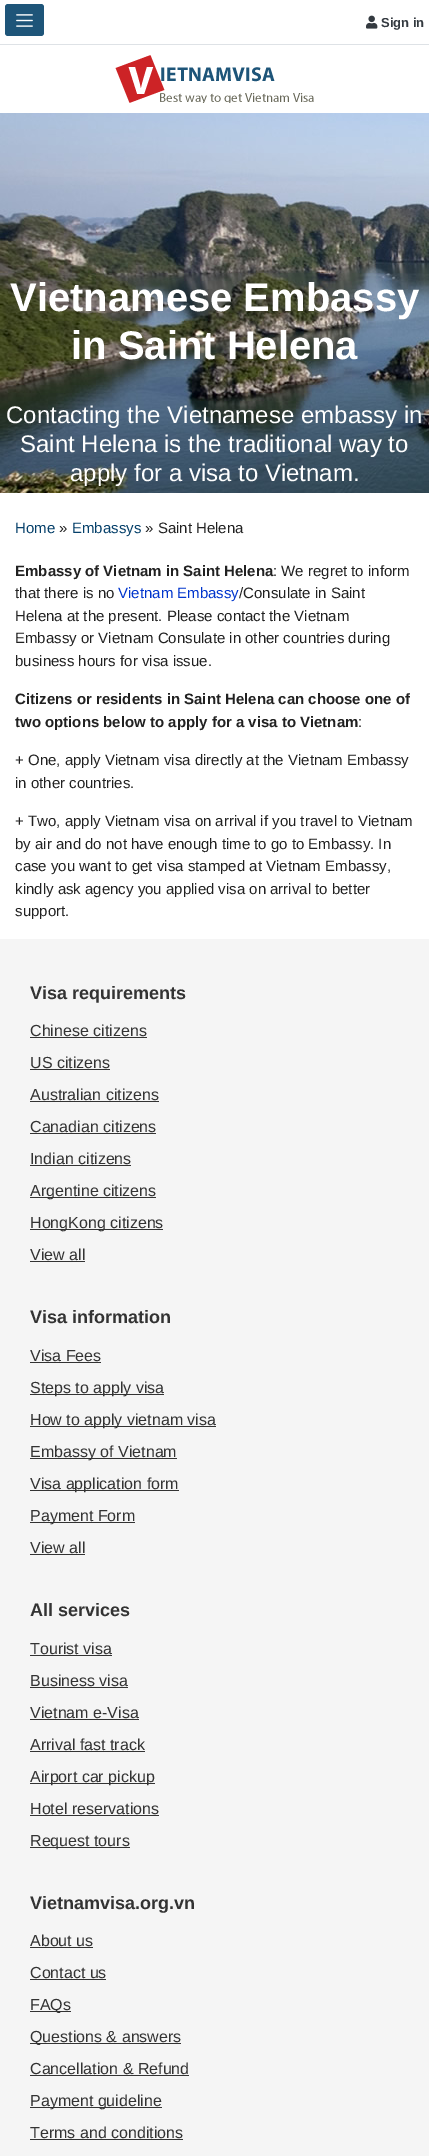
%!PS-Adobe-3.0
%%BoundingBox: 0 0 429 2156
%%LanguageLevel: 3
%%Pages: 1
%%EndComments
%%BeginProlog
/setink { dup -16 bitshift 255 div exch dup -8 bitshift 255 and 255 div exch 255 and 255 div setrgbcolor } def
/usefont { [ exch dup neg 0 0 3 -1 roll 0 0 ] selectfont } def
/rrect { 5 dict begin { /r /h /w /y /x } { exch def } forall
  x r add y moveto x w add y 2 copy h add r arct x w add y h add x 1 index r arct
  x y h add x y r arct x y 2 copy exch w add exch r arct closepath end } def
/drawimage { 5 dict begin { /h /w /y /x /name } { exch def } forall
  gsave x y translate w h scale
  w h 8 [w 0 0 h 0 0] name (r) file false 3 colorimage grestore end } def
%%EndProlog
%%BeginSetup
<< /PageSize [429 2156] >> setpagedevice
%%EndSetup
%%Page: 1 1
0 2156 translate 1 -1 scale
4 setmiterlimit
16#FFFFFF setink
0 0 429 2156 rectfill
16#DEE2E6 setink
0 44 429 1 rectfill
16#1E5579 setink
5 4 39 32 3 rrect fill
(img1.raw) 16 14 17 13 drawimage
(img2.raw) 366 15 12 14 drawimage
/LiberationSans-Bold 13 usefont
16#343A40 setink
381 27 moveto (Sign in) show
(img3.raw) 115 55 199 48 drawimage
(img4.raw) 0 113 429 380 drawimage
/LiberationSans-Bold 40 usefont
16#FFFFFF setink
10 311 moveto (Vietnamese Embassy) show
71 359 moveto (in Saint Helena) show
/LiberationSans-Regular 24 usefont
[
    [(Contacting the Vietnamese embassy in) 6 423]
    [(Saint Helena is the traditional way to) 20 452]
    [(apply for a visa to Vietnam.) 70 481]
] { aload pop moveto show } forall
/LiberationSans-Regular 15 usefont
16#05406A setink
15 533 moveto (Home) show
16#212121 setink
59 533 moveto (») show
16#05406A setink
72 533 moveto (Embassys) show
16#212121 setink
145 533 moveto (» Saint Helena) show
/LiberationSans-Bold 15 usefont
15 576 moveto (Embassy of Vietnam in Saint Helena) show
/LiberationSans-Regular 15 usefont
273 576 moveto (: We regret to inform) show
15 598 moveto (that there is no) show
16#0035CD setink
118 598 moveto (Vietnam Embassy) show
16#212121 setink
[
    [(/Consulate in Saint) 239 598]
    [(Helena at the present. Please contact the Vietnam) 15 621]
    [(Embassy or Vietnam Consulate in other countries during) 15 643]
    [(business hours for visa issue.) 15 666]
] { aload pop moveto show } forall
/LiberationSans-Bold 15 usefont
15 704 moveto (Citizens or residents in Saint Helena can choose one of) show
15 727 moveto (two options below to apply for a visa to Vietnam) show
/LiberationSans-Regular 15 usefont
[
    [(:) 358 727]
    [(+ One, apply Vietnam visa directly at the Vietnam Embassy) 15 765]
    [(in other countries.) 15 788]
    [(+ Two, apply Vietnam visa on arrival if you travel to Vietnam) 15 826]
    [(by air and do not have enough time to go to Embassy. In) 15 849]
    [(case you want to get visa stamped at Vietnam Embassy,) 15 871]
    [(kindly ask agency you applied visa on arrival to better) 15 894]
    [(support.) 15 916]
] { aload pop moveto show } forall
16#F5F5F5 setink
0 939 429 1217 rectfill
/LiberationSans-Bold 18 usefont
16#333333 setink
30 999 moveto (Visa requirements) show
/LiberationSans-Regular 16 usefont
30 1036 moveto (Chinese citizens) show
30 1037 117 1 rectfill
30 1068 moveto (US citizens) show
30 1069 80 1 rectfill
30 1100 moveto (Australian citizens) show
30 1101 129 1 rectfill
30 1132 moveto (Canadian citizens) show
30 1133 126 1 rectfill
30 1164 moveto (Indian citizens) show
30 1165 101 1 rectfill
30 1197 126 1 rectfill
30 1196 moveto (Argentine citizens) show
30 1229 133 1 rectfill
30 1228 moveto (HongKong citizens) show
30 1260 moveto (View all) show
30 1261 55 1 rectfill
/LiberationSans-Bold 18 usefont
30 1323 moveto (Visa information) show
/LiberationSans-Regular 16 usefont
30 1361 moveto (Visa Fees) show
30 1362 71 1 rectfill
30 1394 134 1 rectfill
30 1393 moveto (Steps to apply visa) show
30 1426 186 1 rectfill
30 1425 moveto (How to apply vietnam visa) show
30 1458 147 1 rectfill
30 1457 moveto (Embassy of Vietnam) show
30 1490 149 1 rectfill
30 1489 moveto (Visa application form) show
30 1522 105 1 rectfill
30 1521 moveto (Payment Form) show
30 1553 moveto (View all) show
30 1554 55 1 rectfill
/LiberationSans-Bold 18 usefont
30 1616 moveto (All services) show
/LiberationSans-Regular 16 usefont
30 1654 moveto (Tourist visa) show
30 1655 82 1 rectfill
30 1686 moveto (Business visa) show
30 1687 98 1 rectfill
30 1718 moveto (Vietnam e-Visa) show
30 1719 109 1 rectfill
30 1750 moveto (Arrival fast track) show
30 1751 115 1 rectfill
30 1783 125 1 rectfill
30 1782 moveto (Airport car pickup) show
30 1814 moveto (Hotel reservations) show
30 1815 129 1 rectfill
30 1847 100 1 rectfill
30 1846 moveto (Request tours) show
/LiberationSans-Bold 18 usefont
30 1909 moveto (Vietnamvisa.org.vn) show
/LiberationSans-Regular 16 usefont
30 1946 moveto (About us) show
30 1947 63 1 rectfill
30 1978 moveto (Contact us) show
30 1979 76 1 rectfill
30 2011 41 1 rectfill
30 2010 moveto (FAQs) show
30 2043 151 1 rectfill
30 2042 moveto (Questions & answers) show
30 2074 moveto (Cancellation & Refund) show
30 2075 159 1 rectfill
30 2107 132 1 rectfill
30 2106 moveto (Payment guideline) show
30 2138 moveto (Terms and conditions) show
30 2139 153 1 rectfill
showpage
%%EOF
